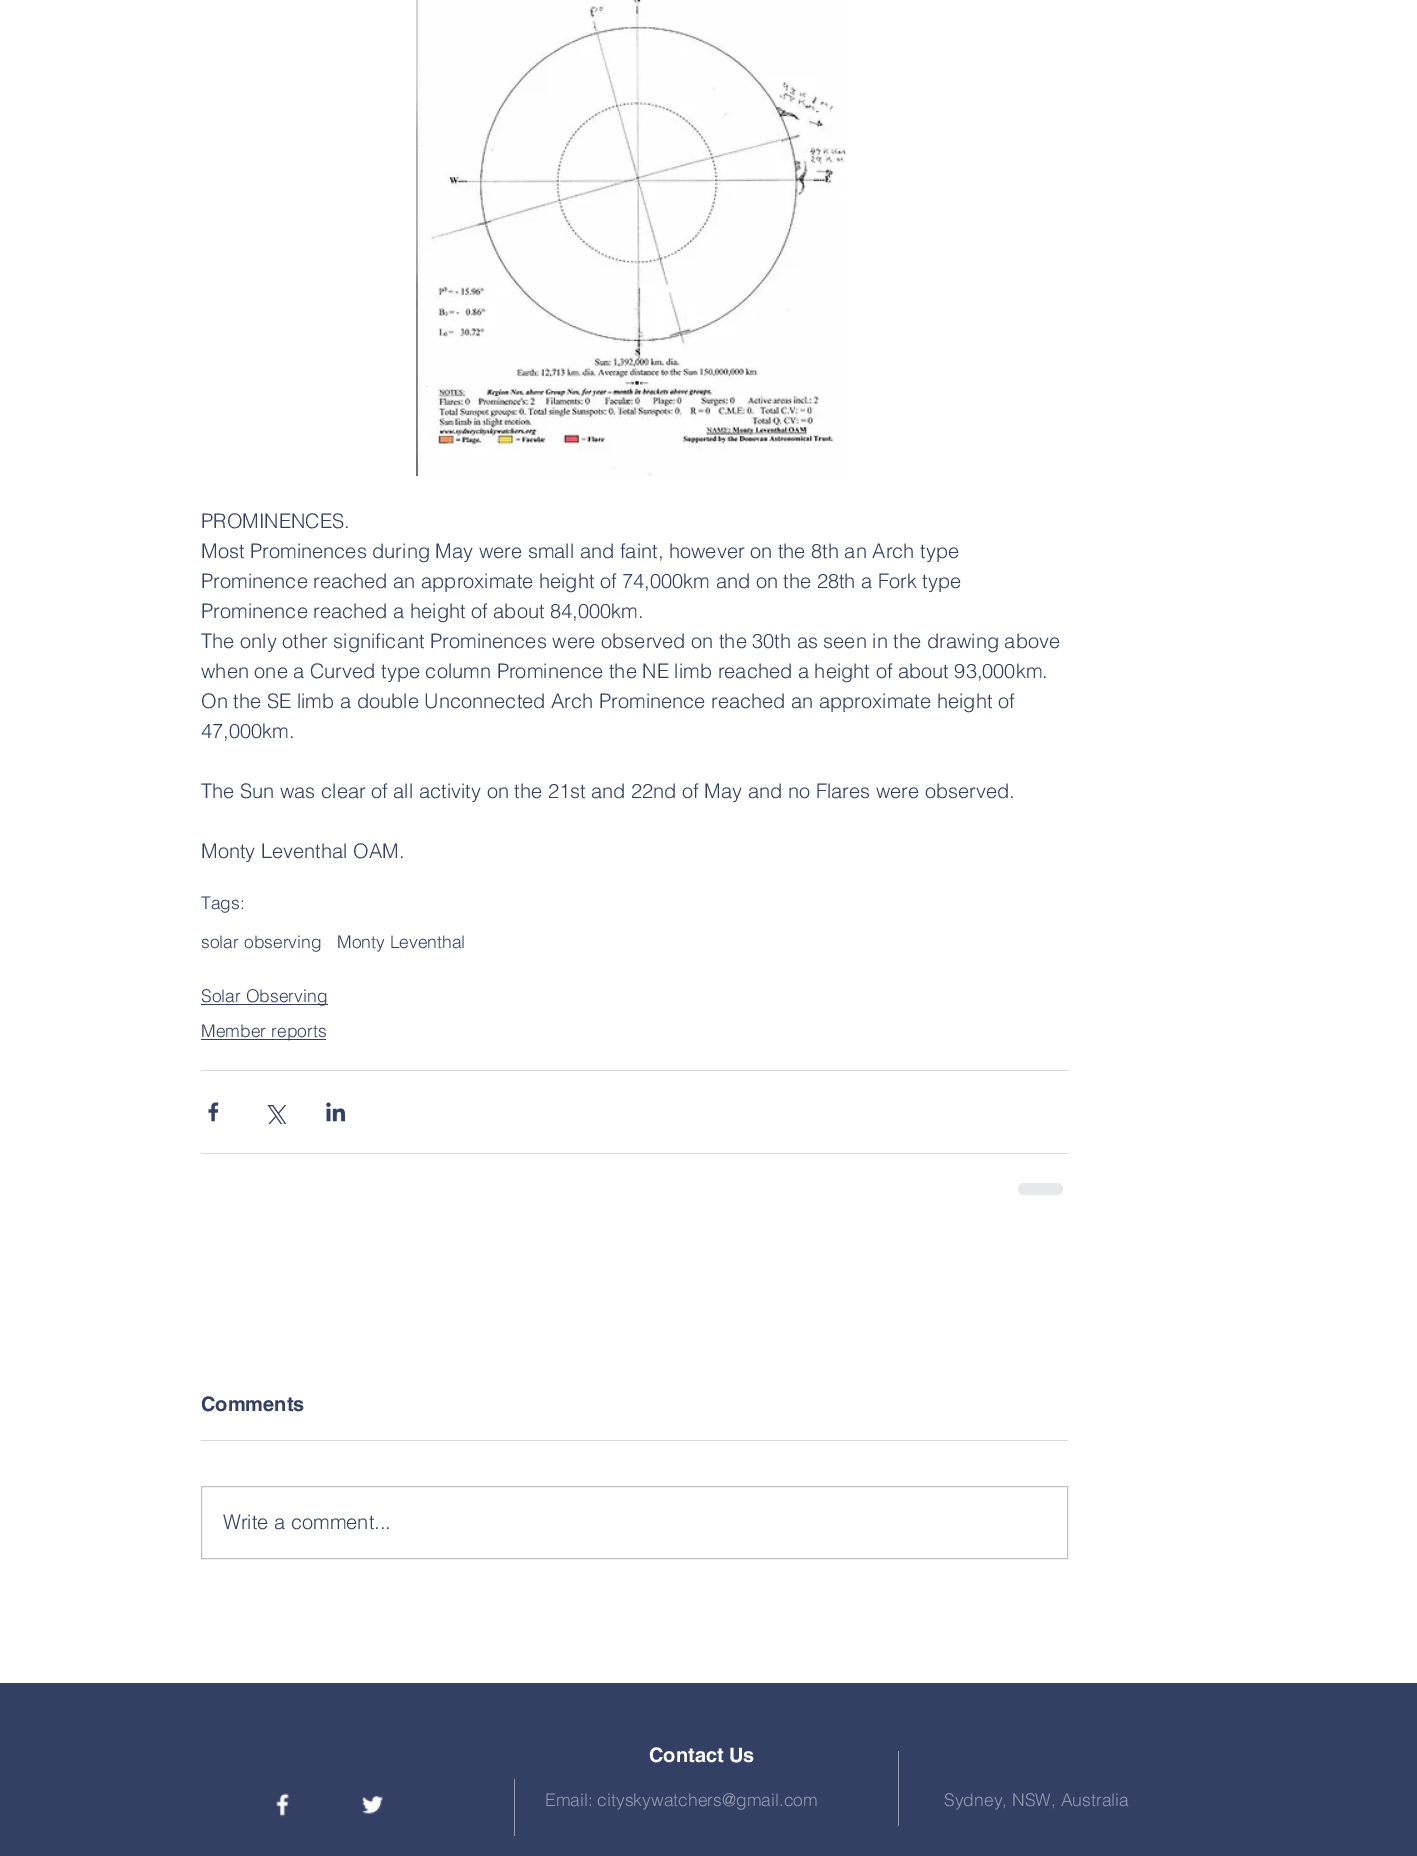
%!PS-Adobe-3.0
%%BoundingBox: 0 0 1417 1856
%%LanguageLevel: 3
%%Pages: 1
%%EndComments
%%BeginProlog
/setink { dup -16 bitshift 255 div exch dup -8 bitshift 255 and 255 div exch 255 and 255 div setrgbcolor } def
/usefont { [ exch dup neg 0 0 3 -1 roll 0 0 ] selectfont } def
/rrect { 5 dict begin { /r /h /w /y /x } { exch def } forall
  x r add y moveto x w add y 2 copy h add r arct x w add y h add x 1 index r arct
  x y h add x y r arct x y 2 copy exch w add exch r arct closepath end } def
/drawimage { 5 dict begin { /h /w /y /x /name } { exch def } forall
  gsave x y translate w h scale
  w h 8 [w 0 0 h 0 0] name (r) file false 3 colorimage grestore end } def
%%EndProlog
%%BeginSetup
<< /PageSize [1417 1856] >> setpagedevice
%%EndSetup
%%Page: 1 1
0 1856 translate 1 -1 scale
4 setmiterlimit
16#FFFFFF setink
0 0 1417 1856 rectfill
(img1.raw) 416 0 431 476 drawimage
/helvetica-Light 20 usefont
16#343F64 setink
[
    [(PROMINENCES.) 201 528]
    [(Most Prominences during May were small and faint, however on the 8th an Arch type) 201 558]
    [(Prominence reached an approximate height of 74,000km and on the 28th a Fork type) 201 588]
    [(Prominence reached a height of about 84,000km.) 201 618]
    [(The only other significant Prominences were observed on the 30th as seen in the drawing above) 201 648]
    [(when one a Curved type column Prominence the NE limb reached a height of about 93,000km.) 201 678]
    [(On the SE limb a double Unconnected Arch Prominence reached an approximate height of) 201 708]
    [(47,000km.) 201 738]
    [(The Sun was clear of all activity on the 21st and 22nd of May and no Flares were observed.) 201 798]
    [(Monty Leventhal OAM.) 201 858]
] { aload pop moveto show } forall
/helvetica-Light 17.5 usefont
[
    [(Tags:) 201 909]
    [(solar observing) 201 948]
    [(Monty Leventhal) 337 948]
] { aload pop moveto show } forall
201 1004 127 1 rectfill
201 1002 moveto (Solar Observing) show
201 1039 125 1 rectfill
201 1037 moveto (Member reports) show
16#D6D9E0 setink
201 1070 867 1 rectfill
(img2.raw) 208 1102 11 20 drawimage
(img3.raw) 267 1105 19 19 drawimage
(img4.raw) 326 1102 19 20 drawimage
201 1153 867 1 rectfill
16#E7E8EC setink
1018 1183 45 12 6 rrect fill
/helvetica-Bold 20 usefont
16#343F64 setink
201 1411 moveto (Comments) show
16#D6D9E0 setink
201 1440 867 1 rectfill
16#C1C0C0 setink
201.5 1486.5 866 72 rectstroke
/helvetica-Light 20 usefont
16#343F64 setink
223 1529 moveto (Write a comment...) show
0 1683 1417 173 rectfill
(img5.raw) 276 1793 13 24 drawimage
(img6.raw) 362 1795 21 19 drawimage
16#959CB2 setink
514 1779 1 57 rectfill
/helvetica-Bold 20 usefont
16#FFFFFF setink
649 1762 moveto (Contact Us) show
16#959CB2 setink
898 1751 1 75 rectfill
/helvetica-Light 17.5 usefont
545 1806 moveto (Email: cityskywatchers@gmail.com) show
944 1806 moveto (Sydney, NSW, Australia) show
showpage
%%EOF
